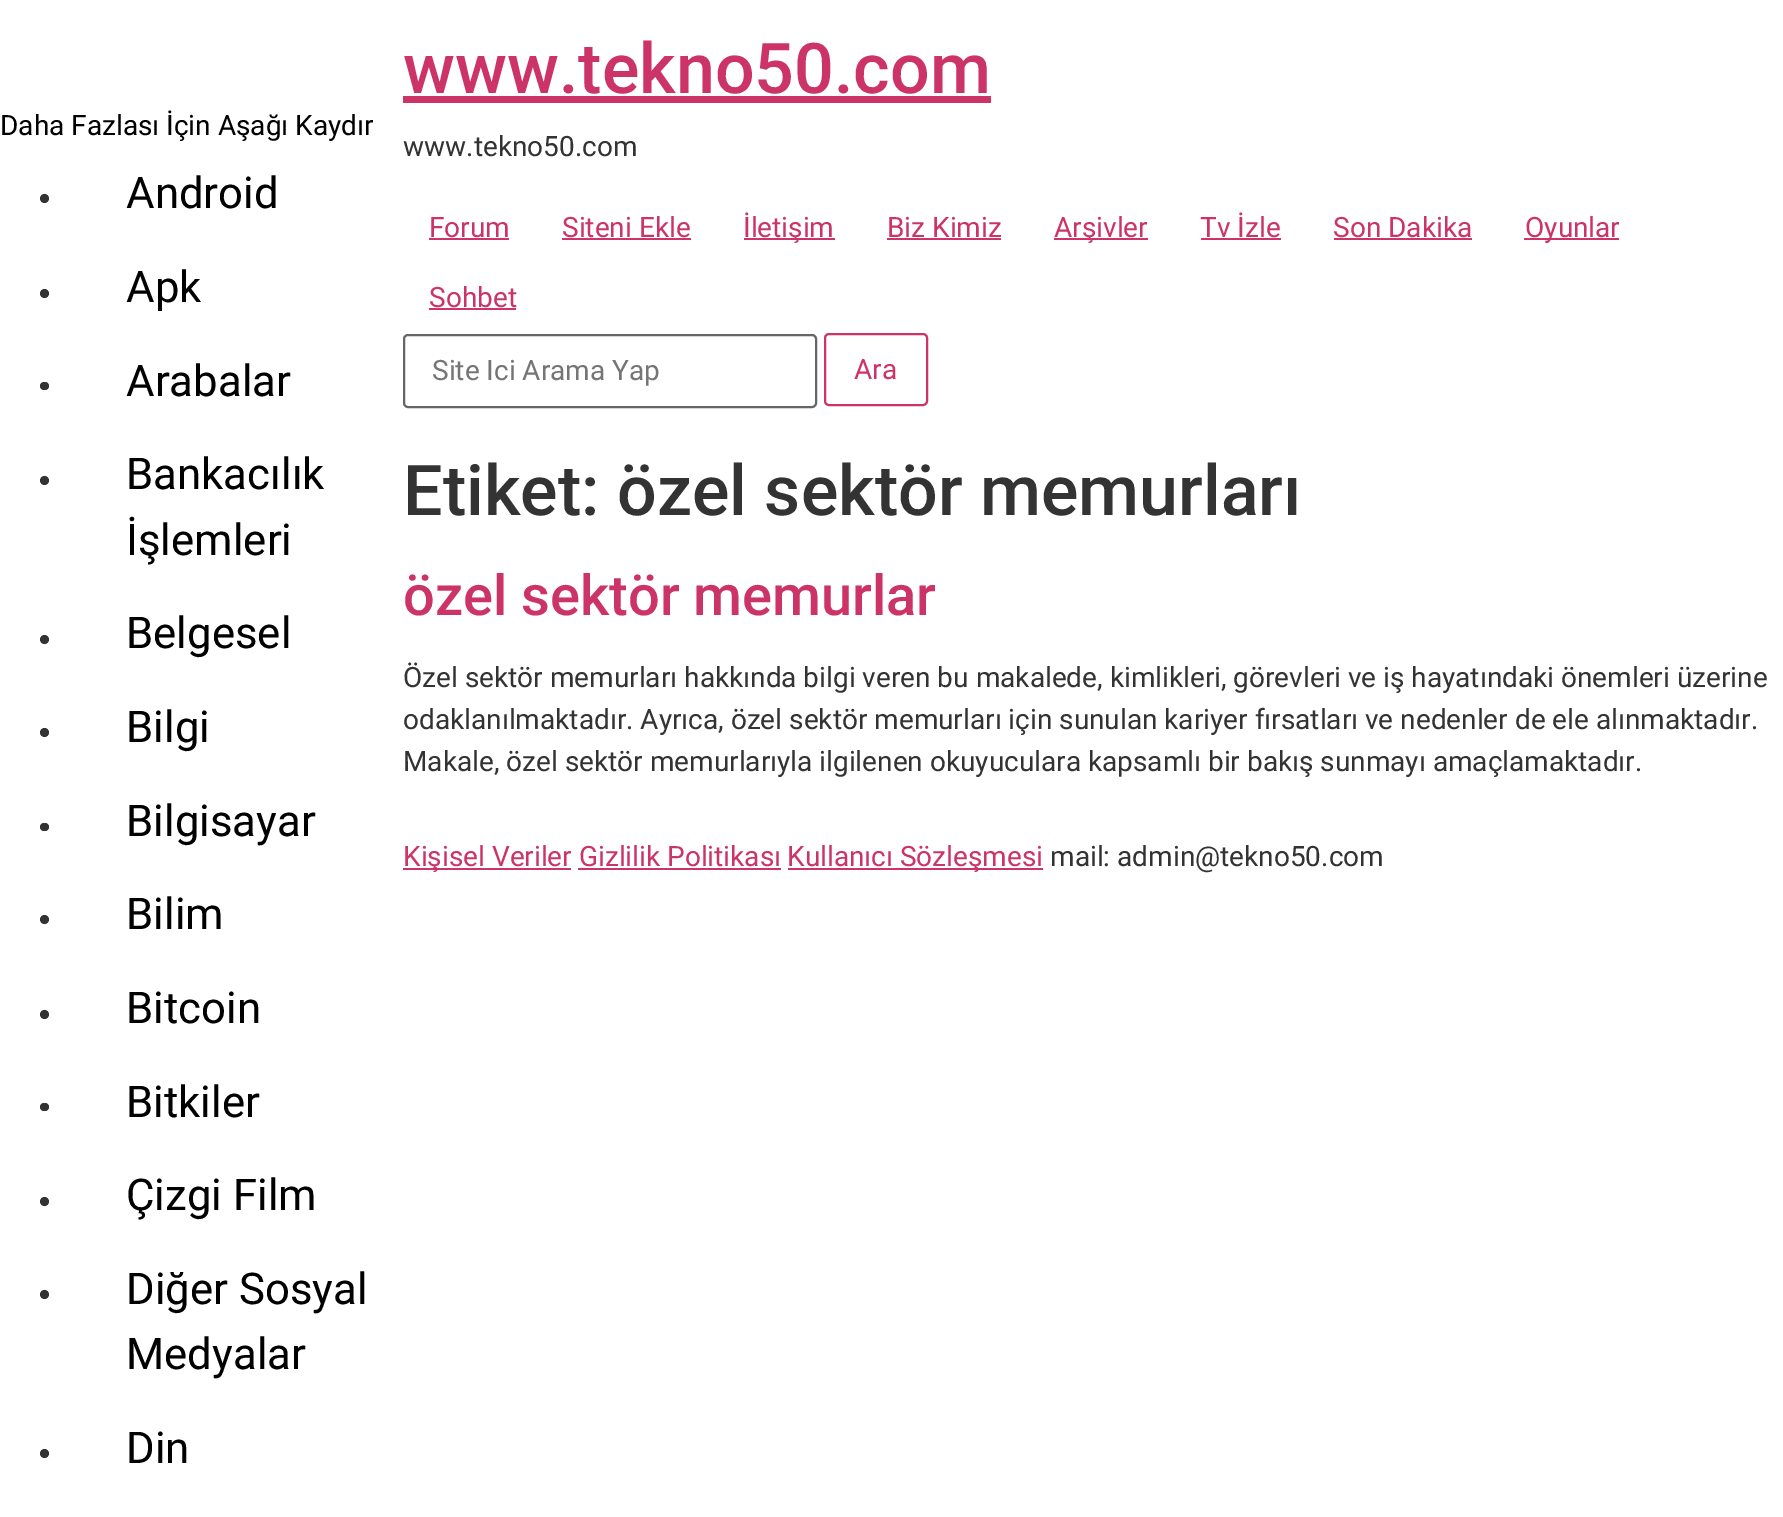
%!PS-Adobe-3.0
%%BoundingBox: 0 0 1783 1517
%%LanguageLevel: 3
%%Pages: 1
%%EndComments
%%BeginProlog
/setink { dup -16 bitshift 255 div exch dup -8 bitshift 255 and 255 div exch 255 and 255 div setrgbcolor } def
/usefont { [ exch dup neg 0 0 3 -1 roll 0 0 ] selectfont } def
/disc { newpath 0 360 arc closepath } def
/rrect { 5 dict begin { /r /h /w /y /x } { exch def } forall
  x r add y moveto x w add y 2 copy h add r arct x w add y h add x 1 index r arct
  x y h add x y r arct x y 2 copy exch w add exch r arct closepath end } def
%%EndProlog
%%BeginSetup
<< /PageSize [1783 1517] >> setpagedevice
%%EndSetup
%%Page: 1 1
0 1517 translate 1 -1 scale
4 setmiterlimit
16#FFFFFF setink
0 0 1783 1517 rectfill
/Roboto-Regular 28 usefont
16#000000 setink
0 135 moveto (Daha Fazlası İçin Aşağı Kaydır) show
16#333333 setink
44.5 198.5 4.5 disc fill
/Roboto-Regular 43.75 usefont
16#000000 setink
126 208 moveto (Android) show
16#333333 setink
44.5 293.5 4.5 disc fill
16#000000 setink
126 302 moveto (Apk) show
16#333333 setink
40 382 9 8 4 rrect fill
16#000000 setink
126 396 moveto (Arabalar) show
16#333333 setink
44.5 480.5 4.5 disc fill
16#000000 setink
126 489 moveto (Bankacılık) show
126 555 moveto (İşlemleri) show
16#333333 setink
44.5 639.5 4.5 disc fill
16#000000 setink
126 648 moveto (Belgesel) show
16#333333 setink
44.5 732.5 4.5 disc fill
16#000000 setink
126 742 moveto (Bilgi) show
16#333333 setink
40 823 9 8 4 rrect fill
16#000000 setink
126 836 moveto (Bilgisayar) show
16#333333 setink
44.5 919.5 4.5 disc fill
16#000000 setink
126 929 moveto (Bilim) show
16#333333 setink
44.5 1014.5 4.5 disc fill
16#000000 setink
126 1023 moveto (Bitcoin) show
16#333333 setink
40 1103 9 8 4 rrect fill
16#000000 setink
126 1117 moveto (Bitkiler) show
16#333333 setink
44.5 1201.5 4.5 disc fill
16#000000 setink
126 1210 moveto (Çizgi Film) show
16#333333 setink
44.5 1294.5 4.5 disc fill
16#000000 setink
126 1304 moveto (Diğer Sosyal) show
126 1369 moveto (Medyalar) show
16#333333 setink
44.5 1453.5 4.5 disc fill
16#000000 setink
126 1463 moveto (Din) show
/Roboto-Medium 70 usefont
16#CC3366 setink
403 93 moveto (www.tekno50.com) show
403 96 588 7 rectfill
/Roboto-Regular 28 usefont
16#333333 setink
403 156 moveto (www.tekno50.com) show
16#CC3366 setink
429 237 moveto (Forum) show
429 238 80 2 rectfill
562 237 moveto (Siteni Ekle) show
562 238 129 2 rectfill
744 238 91 2 rectfill
743 237 moveto (İletişim) show
887 237 moveto (Biz Kimiz) show
887 238 114 2 rectfill
1054 238 94 2 rectfill
1054 237 moveto (Arşivler) show
1200 237 moveto (Tv İzle) show
1201 238 80 2 rectfill
1333 237 moveto (Son Dakika) show
1334 238 138 2 rectfill
1524 238 95 2 rectfill
1525 237 moveto (Oyunlar) show
429 307 moveto (Sohbet) show
429 308 87 2 rectfill
16#666666 setink
2 setlinewidth
404 335 412 72 4 rrect stroke
16#757575 setink
432 380 moveto (Site Ici Arama Yap) show
16#CC3366 setink
825 334 102 71 4 rrect stroke
854 379 moveto (Ara) show
/Roboto-Medium 70 usefont
16#333333 setink
403 515 moveto (Etiket: özel sektör memurları) show
/Roboto-Medium 56 usefont
16#CC3366 setink
403 615 moveto (özel sektör memurlar) show
/Roboto-Regular 28 usefont
16#333333 setink
[
    [(Özel sektör memurları hakkında bilgi veren bu makalede, kimlikleri, görevleri ve iş hayatındaki önemleri üzerine) 403 687]
    [(odaklanılmaktadır. Ayrıca, özel sektör memurları için sunulan kariyer fırsatları ve nedenler de ele alınmaktadır.) 403 729]
    [(Makale, özel sektör memurlarıyla ilgilenen okuyuculara kapsamlı bir bakış sunmayı amaçlamaktadır.) 403 771]
] { aload pop moveto show } forall
16#CC3366 setink
403 868 168 2 rectfill
403 866 moveto (Kişisel Veriler Gizlilik Politikası) show
788 868 255 2 rectfill
787 866 moveto (Kullanıcı Sözleşmesi) show
16#333333 setink
1050 866 moveto (mail: admin@tekno50.com) show
16#CC3366 setink
578 868 203 2 rectfill
showpage
%%EOF
